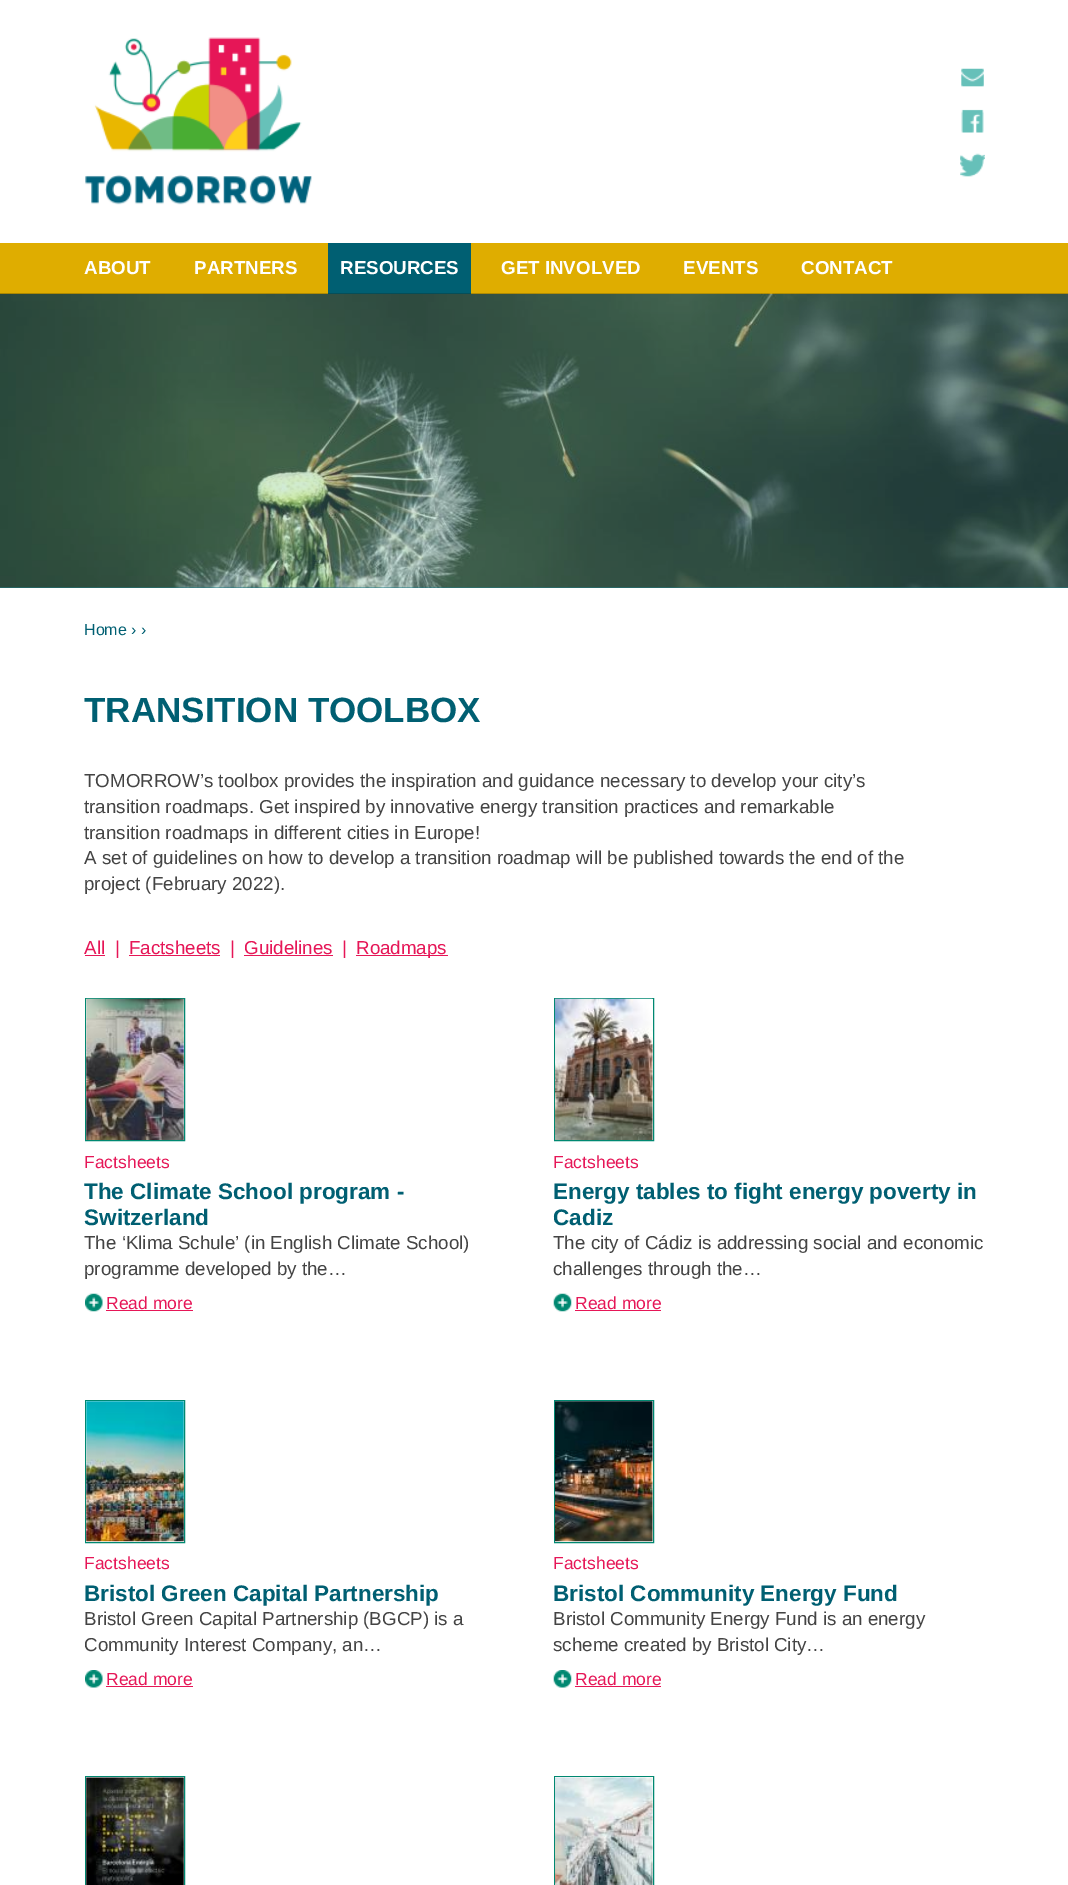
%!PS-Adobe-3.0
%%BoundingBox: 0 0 1068 1885
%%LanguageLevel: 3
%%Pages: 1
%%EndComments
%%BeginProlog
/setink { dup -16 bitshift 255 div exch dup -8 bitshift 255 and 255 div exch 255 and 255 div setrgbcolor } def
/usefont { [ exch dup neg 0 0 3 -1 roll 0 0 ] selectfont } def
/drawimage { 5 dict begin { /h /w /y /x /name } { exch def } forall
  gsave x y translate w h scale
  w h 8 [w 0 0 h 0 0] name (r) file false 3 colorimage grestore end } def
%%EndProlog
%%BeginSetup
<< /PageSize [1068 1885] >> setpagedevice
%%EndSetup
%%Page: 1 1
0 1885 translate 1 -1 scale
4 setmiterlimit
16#FFFFFF setink
0 0 1068 1885 rectfill
(img1.raw) 85 37 227 168 drawimage
(img2.raw) 961 68 23 19 drawimage
(img3.raw) 961 109 23 24 drawimage
(img4.raw) 960 153 25 24 drawimage
16#DFAD00 setink
0 243 1068 51 rectfill
/LiberationSans-Bold 18.75 usefont
16#FFFFFF setink
84 274 moveto (ABOUT) show
194 274 moveto (PARTNERS) show
16#005F72 setink
328 243 143 51 rectfill
16#FFFFFF setink
[
    [(RESOURCES) 340 274]
    [(GET INVOLVED) 501 274]
    [(EVENTS) 683 274]
    [(CONTACT) 801 274]
] { aload pop moveto show } forall
16#1F7C87 setink
0 587 1068 1 rectfill
(img5.raw) 0 293 1068 295 drawimage
/LiberationSans-Regular 16 usefont
16#005F72 setink
84 635 moveto (Home › ›) show
/LiberationSans-Bold 35 usefont
84 722 moveto (TRANSITION TOOLBOX) show
/LiberationSans-Regular 18.75 usefont
16#444444 setink
[
    [(TOMORROW’s toolbox provides the inspiration and guidance necessary to develop your city’s) 84 787]
    [(transition roadmaps. Get inspired by innovative energy transition practices and remarkable) 84 813]
    [(transition roadmaps in different cities in Europe!) 84 839]
    [(A set of guidelines on how to develop a transition roadmap will be published towards the end of the) 84 864]
    [(project \(February 2022\).) 84 890]
] { aload pop moveto show } forall
16#E61657 setink
84 954 moveto (All) show
85 955 20 1 rectfill
115 954 moveto (|) show
129 954 moveto (Factsheets) show
129 955 91 1 rectfill
230 954 moveto (|) show
244 954 moveto (Guidelines) show
244 955 89 1 rectfill
342 954 moveto (|) show
356 955 92 1 rectfill
356 954 moveto (Roadmaps) show
16#008871 setink
85.5 998.5 99 142 rectstroke
(img6.raw) 86 998 98 142 drawimage
/LiberationSans-Regular 17.5 usefont
16#E61657 setink
84 1168 moveto (Factsheets) show
/LiberationSans-Bold 22.5 usefont
16#005F72 setink
84 1199 moveto (The Climate School program -) show
84 1225 moveto (Switzerland) show
/LiberationSans-Regular 18.75 usefont
16#444444 setink
84 1249 moveto (The ‘Klima Schule’ \(in English Climate School\)) show
84 1275 moveto (programme developed by the…) show
(img7.raw) 85 1293 18 19 drawimage
/LiberationSans-Regular 17.5 usefont
16#E61657 setink
106 1309 moveto (Read more) show
106 1310 87 1 rectfill
16#008871 setink
554.5 998.5 99 142 rectstroke
(img8.raw) 555 998 98 142 drawimage
16#E61657 setink
553 1168 moveto (Factsheets) show
/LiberationSans-Bold 22.5 usefont
16#005F72 setink
553 1199 moveto (Energy tables to fight energy poverty in) show
553 1225 moveto (Cadiz) show
/LiberationSans-Regular 18.75 usefont
16#444444 setink
553 1249 moveto (The city of Cádiz is addressing social and economic) show
553 1275 moveto (challenges through the…) show
(img9.raw) 553 1293 19 19 drawimage
/LiberationSans-Regular 17.5 usefont
16#E61657 setink
575 1309 moveto (Read more) show
575 1310 86 1 rectfill
16#008871 setink
85.5 1400.5 99 142 rectstroke
(img10.raw) 86 1401 98 141 drawimage
16#E61657 setink
84 1569 moveto (Factsheets) show
/LiberationSans-Bold 22.5 usefont
16#005F72 setink
84 1601 moveto (Bristol Green Capital Partnership) show
/LiberationSans-Regular 18.75 usefont
16#444444 setink
84 1625 moveto (Bristol Green Capital Partnership \(BGCP\) is a) show
84 1651 moveto (Community Interest Company, an…) show
(img11.raw) 85 1670 18 18 drawimage
/LiberationSans-Regular 17.5 usefont
16#E61657 setink
106 1685 moveto (Read more) show
106 1686 87 1 rectfill
16#008871 setink
554.5 1400.5 99 142 rectstroke
(img12.raw) 555 1401 98 141 drawimage
16#E61657 setink
553 1569 moveto (Factsheets) show
/LiberationSans-Bold 22.5 usefont
16#005F72 setink
553 1601 moveto (Bristol Community Energy Fund) show
/LiberationSans-Regular 18.75 usefont
16#444444 setink
553 1625 moveto (Bristol Community Energy Fund is an energy) show
553 1651 moveto (scheme created by Bristol City…) show
(img13.raw) 553 1670 19 18 drawimage
/LiberationSans-Regular 17.5 usefont
16#E61657 setink
575 1685 moveto (Read more) show
575 1686 86 1 rectfill
16#008871 setink
85.5 1776.5 99 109 rectstroke
(img14.raw) 86 1777 98 108 drawimage
554.5 1776.5 99 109 rectstroke
(img15.raw) 555 1777 98 108 drawimage
showpage
%%EOF
